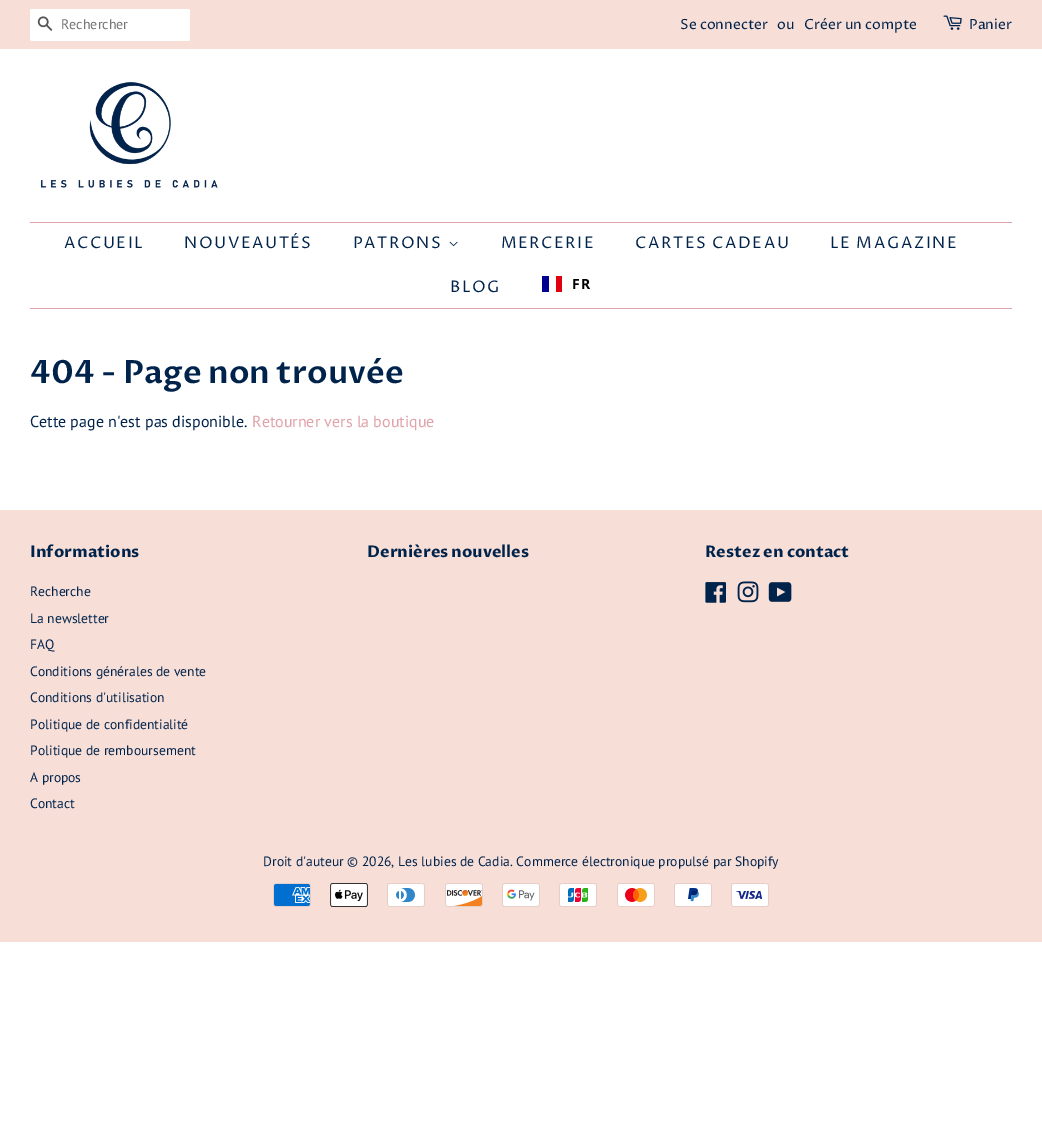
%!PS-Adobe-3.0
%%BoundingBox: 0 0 1042 1144
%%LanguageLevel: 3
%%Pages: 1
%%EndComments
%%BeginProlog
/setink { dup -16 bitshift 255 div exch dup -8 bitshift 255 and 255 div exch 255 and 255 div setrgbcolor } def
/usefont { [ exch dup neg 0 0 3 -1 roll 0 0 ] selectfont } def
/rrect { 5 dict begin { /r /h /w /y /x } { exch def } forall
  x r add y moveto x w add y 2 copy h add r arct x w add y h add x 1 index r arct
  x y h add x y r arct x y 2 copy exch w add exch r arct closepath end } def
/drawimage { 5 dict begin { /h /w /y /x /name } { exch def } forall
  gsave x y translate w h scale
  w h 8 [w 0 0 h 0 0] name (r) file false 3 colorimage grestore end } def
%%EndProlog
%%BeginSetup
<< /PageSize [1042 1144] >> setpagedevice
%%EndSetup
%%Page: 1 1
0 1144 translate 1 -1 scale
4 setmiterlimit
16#FFFFFF setink
0 0 1042 1144 rectfill
16#F7DED7 setink
0 0 1042 49 rectfill
16#FFFFFF setink
30 9 160 32 2 rrect fill
(img1.raw) 37 16 16 15 drawimage
/PTSans-Regular 14 usefont
16#757575 setink
61 29 moveto (Rechercher) show
/ProzaLibre-Regular 14 usefont
16#00234B setink
[
    [(Se connecter) 680 29]
    [(ou) 777 29]
    [(Créer un compte) 804 29]
] { aload pop moveto show } forall
(img2.raw) 943 15 19 15 drawimage
969 29 moveto (Panier) show
(img3.raw) 40 82 178 106 drawimage
16#E0A3AA setink
30 222 982 1 rectfill
30 308 982 1 rectfill
/ProzaLibre-Regular 16 usefont
16#00234B setink
64 248 moveto 1.6 0 (ACCUEIL) ashow
184 248 moveto 1.6 0 (NOUVEAUTÉS) ashow
353 248 moveto 1.6 0 (PATRONS) ashow
(img4.raw) 449 241 9 6 drawimage
501 248 moveto 1.6 0 (MERCERIE) ashow
635 248 moveto 1.6 0 (CARTES CADEAU) ashow
830 248 moveto 1.6 0 (LE MAGAZINE) ashow
450 292 moveto 1.6 0 (BLOG) ashow
16#000091 setink
542 276 7 16 rectfill
16#E1000F setink
556 276 6 16 rectfill
/NotoSans-Bold 14 usefont
16#000000 setink
572 289 moveto 1.6 0 (FR) ashow
/ProzaLibre-SemiBold 32 usefont
16#00234B setink
30 383 moveto (404 - Page non trouvée) show
/PTSans-Regular 16 usefont
30 427 moveto (Cette page n'est pas disponible.) show
16#E0A3AA setink
252 427 moveto (Retourner vers la boutique) show
16#F7DED7 setink
0 510 1042 432 rectfill
/ProzaLibre-Bold 16 usefont
16#00234B setink
30 557 moveto (Informations) show
/PTSans-Regular 13.6 usefont
[
    [(Recherche) 30 596]
    [(La newsletter) 30 623]
    [(FAQ) 30 649]
    [(Conditions générales de vente) 30 676]
    [(Conditions d'utilisation) 30 702]
    [(Politique de confidentialité) 30 729]
    [(Politique de remboursement) 30 755]
    [(A propos) 30 782]
    [(Contact) 30 808]
] { aload pop moveto show } forall
/ProzaLibre-Bold 16 usefont
367 557 moveto (Dernières nouvelles) show
705 557 moveto (Restez en contact) show
(img5.raw) 705 582 21 21 drawimage
(img6.raw) 737 581 22 22 drawimage
(img7.raw) 768 582 24 20 drawimage
/PTSans-Regular 13.6 usefont
263 866 moveto (Droit d'auteur © 2026, Les lubies de Cadia. Commerce électronique propulsé par Shopify) show
(img8.raw) 273 883 38 24 drawimage
(img9.raw) 330 883 38 24 drawimage
(img10.raw) 387 883 38 24 drawimage
(img11.raw) 445 883 38 24 drawimage
(img12.raw) 502 883 38 24 drawimage
(img13.raw) 559 883 38 24 drawimage
(img14.raw) 617 883 38 24 drawimage
(img15.raw) 674 883 38 24 drawimage
(img16.raw) 731 883 38 24 drawimage
showpage
%%EOF
